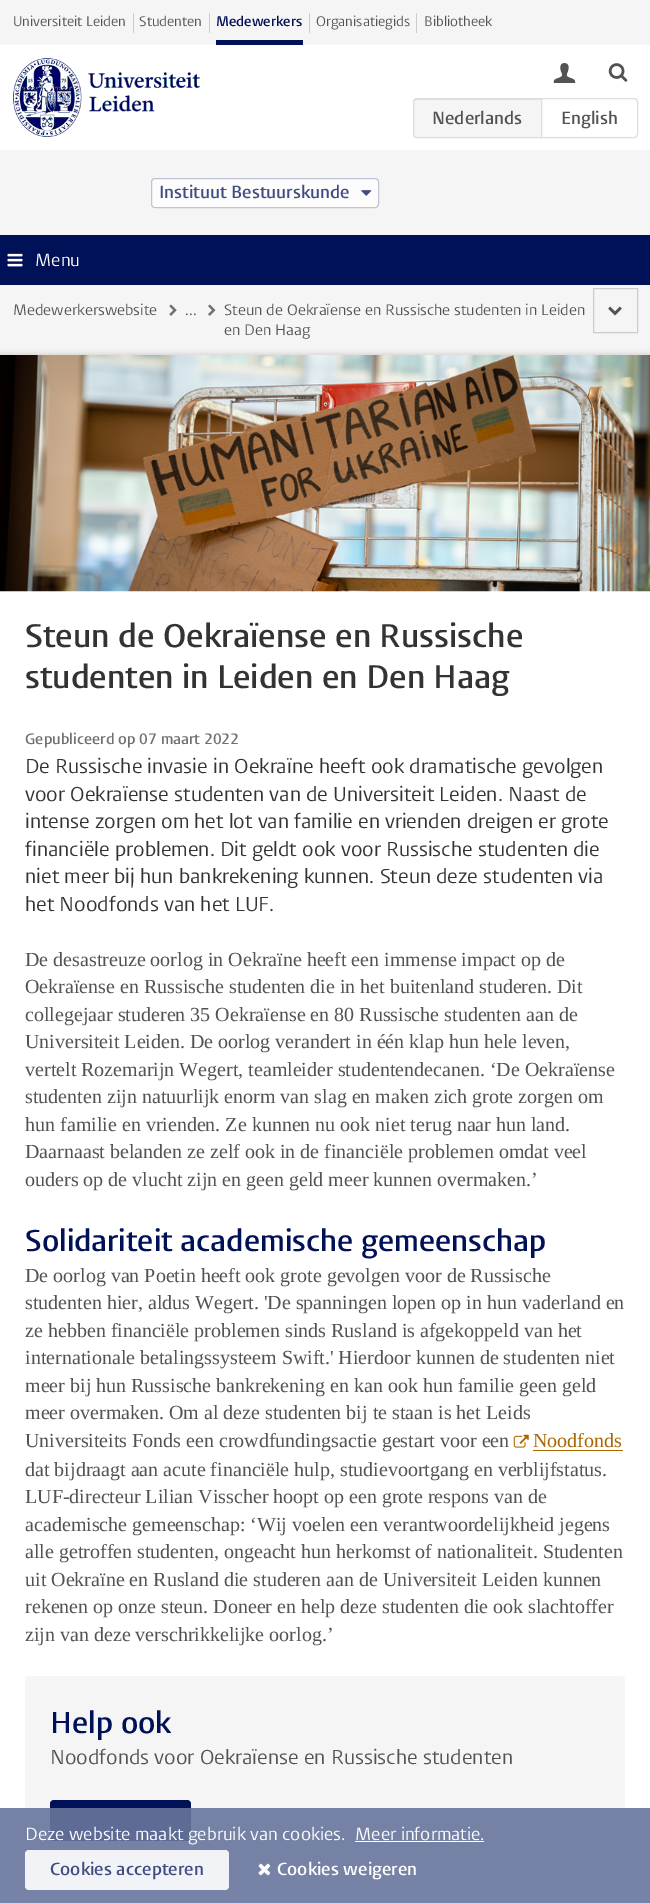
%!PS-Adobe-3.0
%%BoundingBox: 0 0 650 1903
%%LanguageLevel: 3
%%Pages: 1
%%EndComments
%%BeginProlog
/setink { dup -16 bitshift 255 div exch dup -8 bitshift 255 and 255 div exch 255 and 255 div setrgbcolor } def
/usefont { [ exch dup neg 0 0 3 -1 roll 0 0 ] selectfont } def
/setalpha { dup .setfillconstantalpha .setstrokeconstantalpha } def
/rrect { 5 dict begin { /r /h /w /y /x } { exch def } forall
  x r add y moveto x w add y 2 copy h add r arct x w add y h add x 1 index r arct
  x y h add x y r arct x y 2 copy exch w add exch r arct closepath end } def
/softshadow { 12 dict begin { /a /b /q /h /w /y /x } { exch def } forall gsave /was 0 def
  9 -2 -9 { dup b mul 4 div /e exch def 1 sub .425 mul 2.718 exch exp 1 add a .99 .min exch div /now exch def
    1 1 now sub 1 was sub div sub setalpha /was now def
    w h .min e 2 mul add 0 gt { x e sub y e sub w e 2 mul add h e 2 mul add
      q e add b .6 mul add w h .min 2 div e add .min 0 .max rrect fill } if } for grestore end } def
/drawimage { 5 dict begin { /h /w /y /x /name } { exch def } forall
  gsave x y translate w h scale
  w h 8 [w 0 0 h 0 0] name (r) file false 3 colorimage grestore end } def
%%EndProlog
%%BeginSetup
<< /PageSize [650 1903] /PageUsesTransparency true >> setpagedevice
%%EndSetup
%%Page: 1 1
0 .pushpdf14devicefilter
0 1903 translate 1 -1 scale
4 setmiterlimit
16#F5F5F5 setink
0 0 650 1903 rectfill
16#FFFFFF setink
0 45 650 105 rectfill
16#CCCCCC setink
133 13 1 20 rectfill
/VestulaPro-Regular 13.75 usefont
16#535353 setink
13 26 moveto (Universiteit Leiden) show
16#CCCCCC setink
209 13 1 20 rectfill
16#535353 setink
139 26 moveto (Studenten) show
16#CCCCCC setink
309 13 1 20 rectfill
/VestulaPro-SemiBold 13.75 usefont
16#001158 setink
216 26 moveto (Medewerkers) show
216 40 87 5 rectfill
16#CCCCCC setink
416 13 1 20 rectfill
/VestulaPro-Regular 13.75 usefont
16#535353 setink
316 26 moveto (Organisatiegids) show
424 26 moveto (Bibliotheek) show
(img1.raw) 13 58 187 79 drawimage
(img2.raw) 553 63 23 20 drawimage
(img3.raw) 608 63 20 19 drawimage
16#F5F5F5 setink
417 98 moveto 543 98 lineto 543 138 lineto 417 138 lineto 415 138 413 136 413 134 curveto 413 102 lineto 413 100 415 98 417 98 curveto closepath fill
16#E1E1E1 setink
416 100 moveto 541 100 lineto 541 99 lineto 416 99 lineto 415 99 414 100 414 102 curveto 414 101 415 100 416 100 curveto closepath fill
16#DDDDDD setink
417 98.5 moveto 542.5 98.5 lineto 542.5 137.5 lineto 417 137.5 lineto 415 137.5 413.5 136 413.5 134 curveto 413.5 102 lineto 413.5 100 415 98.5 417 98.5 curveto closepath stroke
/VestulaPro-SemiBold 17.5 usefont
16#535353 setink
432 124 moveto (Nederlands) show
16#FFFFFF setink
541.5 98.5 moveto 634 98.5 lineto 636 98.5 637.5 100 637.5 102 curveto 637.5 134 lineto 637.5 136 636 137.5 634 137.5 curveto 541.5 137.5 lineto closepath gsave fill grestore
16#DDDDDD setink
stroke
16#535353 setink
561 124 moveto (English) show
16#FCFCFC setink
151.5 178.5 227 29 3.5 rrect gsave fill grestore
16#BFC3D5 setink
stroke
16#404D82 setink
159 198 moveto (Instituut Bestuurskunde) show
(img4.raw) 361 190 11 6 drawimage
16#001158 setink
0 235 650 50 rectfill
(img5.raw) 7 253 16 14 drawimage
/VestulaPro-Regular 17.5 usefont
16#FFFFFF setink
35 266 moveto (Menu) show
/VestulaPro-Regular 15 usefont
16#535353 setink
13 315 moveto (Medewerkerswebsite) show
(img6.raw) 169 304 8 12 drawimage
185 315 moveto (...) show
(img7.raw) 208 304 8 12 drawimage
224 315 moveto (Steun de Oekraïense en Russische studenten in Leiden) show
224 335 moveto (en Den Haag) show
16#CCCCCC setink
593.5 288.5 44 44 rectstroke
(img8.raw) 608 306 14 10 drawimage
16#786E64 setink
-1 354 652 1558 0 3 0.3 softshadow
16#FFFFFF setink
0 591 650 1312 rectfill
(img9.raw) 0 355 650 237 drawimage
/VestulaPro-SemiBold 32.5 usefont
16#333333 setink
25 647 moveto (Steun de Oekraïense en Russische) show
25 688 moveto (studenten in Leiden en Den Haag) show
/VestulaPro-SemiBold 15 usefont
16#707070 setink
25 744 moveto (Gepubliceerd op 07 maart 2022) show
/VestulaPro-Regular 20 usefont
16#333333 setink
[
    [(De Russische invasie in Oekraïne heeft ook dramatische gevolgen) 25 773]
    [(voor Oekraïense studenten van de Universiteit Leiden. Naast de) 25 801]
    [(intense zorgen om het lot van familie en vrienden dreigen er grote) 25 828]
    [(financiële problemen. Dit geldt ook voor Russische studenten die) 25 856]
    [(niet meer bij hun bankrekening kunnen. Steun deze studenten via) 25 883]
    [(het Noodfonds van het LUF.) 25 911]
] { aload pop moveto show } forall
/LiberationSerif-Regular 20 usefont
16#535353 setink
[
    [(De desastreuze oorlog in Oekraïne heeft een immense impact op de) 25 966]
    [(Oekraïense en Russische studenten die in het buitenland studeren. Dit) 25 993]
    [(collegejaar studeren 35 Oekraïense en 80 Russische studenten aan de) 25 1021]
    [(Universiteit Leiden. De oorlog verandert in één klap hun hele leven,) 25 1048]
    [(vertelt Rozemarijn Wegert, teamleider studentendecanen. ‘De Oekraïense) 25 1076]
    [(studenten zijn natuurlijk enorm van slag en maken zich grote zorgen om) 25 1103]
    [(hun familie en vrienden. Ze kunnen nu ook niet terug naar hun land.) 25 1131]
    [(Daarnaast belanden ze zelf ook in de financiële problemen omdat veel) 25 1158]
    [(ouders op de vlucht zijn en geen geld meer kunnen overmaken.’) 25 1186]
] { aload pop moveto show } forall
/VestulaPro-SemiBold 30 usefont
16#001158 setink
25 1251 moveto (Solidariteit academische gemeenschap) show
/LiberationSerif-Regular 20 usefont
16#535353 setink
[
    [(De oorlog van Poetin heeft ook grote gevolgen voor de Russische) 25 1282]
    [(studenten hier, aldus Wegert. 'De spanningen lopen op in hun vaderland en) 25 1309]
    [(ze hebben financiële problemen sinds Rusland is afgekoppeld van het) 25 1337]
    [(internationale betalingssysteem Swift.' Hierdoor kunnen de studenten niet) 25 1364]
    [(meer bij hun Russische bankrekening en kan ook hun familie geen geld) 25 1392]
    [(meer overmaken. Om al deze studenten bij te staan is het Leids) 25 1419]
    [(Universiteits Fonds een crowdfundingsactie gestart voor een) 25 1447]
] { aload pop moveto show } forall
(img10.raw) 513 1434 16 14 drawimage
16#AA6600 setink
533 1447 moveto (Noodfonds) show
533 1450 90 1 rectfill
16#535353 setink
[
    [(dat bijdraagt aan acute financiële hulp, studievoortgang en verblijfstatus.) 25 1476]
    [(LUF-directeur Lilian Visscher hoopt op een grote respons van de) 25 1503]
    [(academische gemeenschap: ‘Wij voelen een verantwoordelijkheid jegens) 25 1531]
    [(alle getroffen studenten, ongeacht hun herkomst of nationaliteit. Studenten) 25 1558]
    [(uit Oekraïne en Rusland die studeren aan de Universiteit Leiden kunnen) 25 1586]
    [(rekenen op onze steun. Doneer en help deze studenten die ook slachtoffer) 25 1613]
    [(zijn van deze verschrikkelijke oorlog.’) 25 1641]
] { aload pop moveto show } forall
16#F5F5F5 setink
25 1676 600 193 4 rrect fill
/VestulaPro-SemiBold 30 usefont
16#001158 setink
50 1733 moveto (Help ook) show
/VestulaPro-Regular 20 usefont
16#535353 setink
50 1764 moveto (Noodfonds voor Oekraïense en Russische studenten) show
16#001158 setink
50 1800 141 41 4 rrect fill
0.9 setalpha
16#68769C setink
0 1808 650 95 rectfill
/VestulaPro-Regular 17.5 usefont
1 setalpha
16#FFFFFF setink
25 1840 moveto (Deze website maakt gebruik van cookies.) show
355 1840 moveto (Meer informatie.) show
355 1841 129 1 rectfill
16#F1F3F6 setink
25 1850 204 40 4 rrect fill
/VestulaPro-SemiBold 17.5 usefont
16#404D82 setink
50 1875 moveto (Cookies accepteren) show
(img11.raw) 258 1863 13 13 drawimage
16#FFFFFF setink
277 1875 moveto (Cookies weigeren) show
.poppdf14devicefilter showpage
%%EOF
